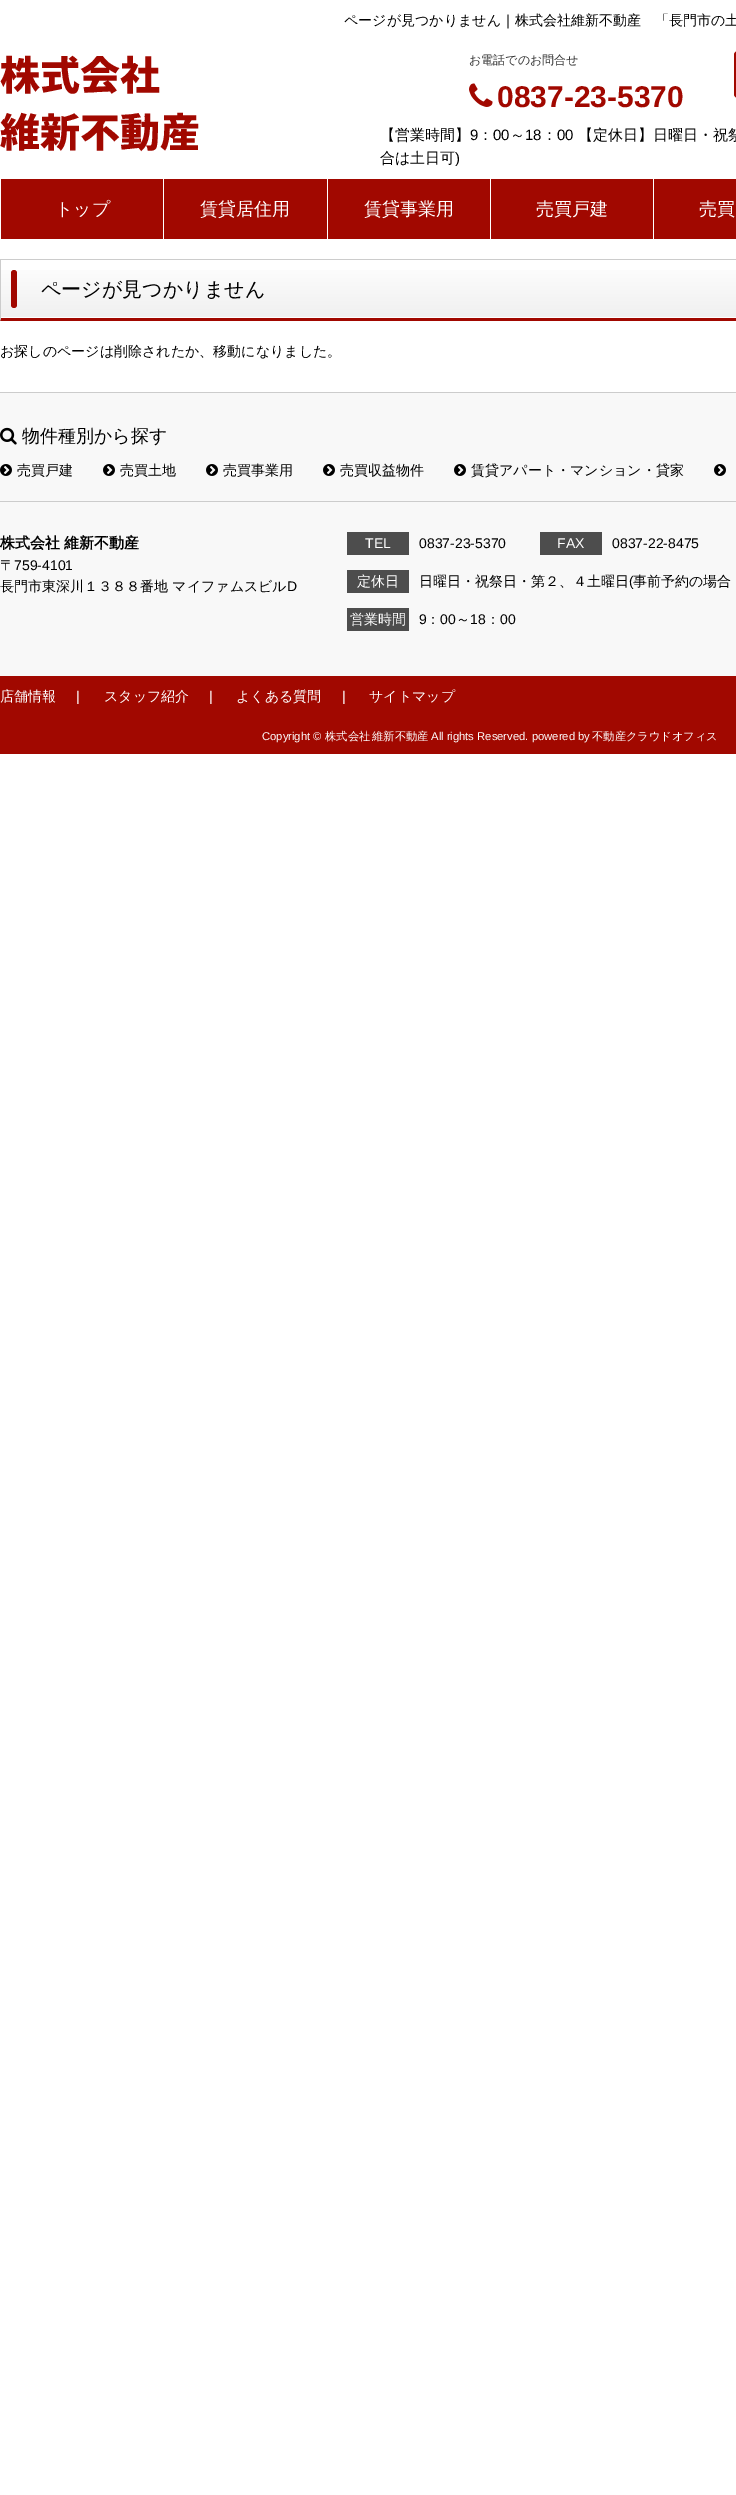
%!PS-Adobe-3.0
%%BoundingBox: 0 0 736 2495
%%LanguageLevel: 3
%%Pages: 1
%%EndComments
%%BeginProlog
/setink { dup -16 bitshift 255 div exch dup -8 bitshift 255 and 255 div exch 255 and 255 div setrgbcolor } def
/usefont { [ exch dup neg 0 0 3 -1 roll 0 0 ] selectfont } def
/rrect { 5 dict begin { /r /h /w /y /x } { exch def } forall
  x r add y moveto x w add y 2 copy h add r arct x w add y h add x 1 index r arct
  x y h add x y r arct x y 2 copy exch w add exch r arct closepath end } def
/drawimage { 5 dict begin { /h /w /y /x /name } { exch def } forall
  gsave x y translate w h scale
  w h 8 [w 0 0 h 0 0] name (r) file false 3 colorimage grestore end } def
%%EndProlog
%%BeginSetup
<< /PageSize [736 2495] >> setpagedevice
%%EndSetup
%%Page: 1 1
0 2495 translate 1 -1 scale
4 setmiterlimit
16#FFFFFF setink
0 0 736 2495 rectfill
/WenQuanYiZenHei-Medium 14 usefont
16#000000 setink
344 25 moveto (ページが見つかりません｜株式会社維新不動産　「長門市の土) show
/NotoSansJP-Black 40 usefont
16#A10800 setink
0 90 moveto (株式会社) show
0 147 moveto (維新不動産) show
/WenQuanYiZenHei-Medium 12 usefont
16#333333 setink
469 64 moveto (お電話でのお問合せ) show
(img1.raw) 469 83 24 24 drawimage
/LiberationSans-Bold 30 usefont
16#A10800 setink
497 107 moveto (0837-23-5370) show
734 51 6 47 4 rrect fill
/WenQuanYiZenHei-Medium 15 usefont
16#000000 setink
380 140 moveto (【営業時間】) show
/LiberationSans-Regular 15 usefont
470 140 moveto (9) show
/WenQuanYiZenHei-Medium 15 usefont
478 140 moveto (：) show
/LiberationSans-Regular 15 usefont
493 140 moveto (00) show
/WenQuanYiZenHei-Medium 15 usefont
510 140 moveto (～) show
/LiberationSans-Regular 15 usefont
525 140 moveto (18) show
/WenQuanYiZenHei-Medium 15 usefont
542 140 moveto (：) show
/LiberationSans-Regular 15 usefont
557 140 moveto (00) show
/WenQuanYiZenHei-Medium 15 usefont
578 140 moveto (【定休日】日曜日・祝祭) show
380 163 moveto (合は土日可) show
/LiberationSans-Regular 15 usefont
455 163 moveto (\)) show
16#A10800 setink
1 179 735 60 rectfill
/WenQuanYiZenHei-Medium 18 usefont
16#FFFFFF setink
55 215 moveto (トップ) show
163 179 1 60 rectfill
200 215 moveto (賃貸居住用) show
327 179 1 60 rectfill
364 215 moveto (賃貸事業用) show
490 179 1 60 rectfill
536 215 moveto (売買戸建) show
653 179 1 60 rectfill
699 215 moveto (売買) show
gsave 1 270 moveto 736 270 lineto 736 317 lineto 1 317 lineto closepath clip newpath
<< /ShadingType 2 /ColorSpace /DeviceRGB /Coords [490 260 490 318] /Extend [true true] /Function << /FunctionType 2 /Domain [0 1] /C0 [1 1 1] /C1 [0.941 0.941 0.941] /N 1 >> >> shfill grestore
16#CCCCCC setink
0 259 736 1 rectfill
16#A10800 setink
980 321 moveto 0 321 lineto 1 318 lineto 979 318 lineto closepath fill
16#CCCCCC setink
0 321 moveto 0 259 lineto 1 260 lineto 1 318 lineto closepath fill
16#A10800 setink
11 270 6 38 3 rrect fill
/WenQuanYiZenHei-Medium 20 usefont
16#000000 setink
41 296 moveto (ページが見つかりません) show
/WenQuanYiZenHei-Medium 14 usefont
0 356 moveto (お探しのページは削除されたか、移動になりました。) show
[
    [0 393 736 283 16#F8F8F8]
    [0 392 736 1 16#CCCCCC]
    [0 501 736 1 16#CCCCCC]
] { aload pop setink rectfill } forall
(img2.raw) 0 427 17 18 drawimage
/WenQuanYiZenHei-Medium 18 usefont
16#000000 setink
22 442 moveto (物件種別から探す) show
(img3.raw) 0 464 12 12 drawimage
/WenQuanYiZenHei-Medium 14 usefont
17 475 moveto (売買戸建) show
(img3.raw) 103 464 12 12 drawimage
120 475 moveto (売買土地) show
(img3.raw) 206 464 12 12 drawimage
223 475 moveto (売買事業用) show
(img3.raw) 323 464 12 12 drawimage
340 475 moveto (売買収益物件) show
(img3.raw) 454 464 12 12 drawimage
471 475 moveto (賃貸アパート・マンション・貸家) show
(img3.raw) 714 464 12 12 drawimage
/WenQuanYiZenHei-Bold 15 usefont
0 548 moveto (株式会社 維新不動産) show
/WenQuanYiZenHei-Medium 14 usefont
0 570 moveto (〒) show
/LiberationSans-Regular 14 usefont
14 570 moveto (759-4101) show
/WenQuanYiZenHei-Medium 14 usefont
0 591 moveto (長門市東深川１３８８番地 マイファムスビル) show
/LiberationSans-Regular 14 usefont
287 591 moveto (D) show
16#4D4D4D setink
347 532 62 23 rectfill
16#FFFFFF setink
365 548 moveto (TEL) show
16#000000 setink
419 548 moveto (0837-23-5370) show
16#4D4D4D setink
540 532 62 23 rectfill
16#FFFFFF setink
557 548 moveto (FAX) show
16#000000 setink
612 548 moveto (0837-22-8475) show
16#4D4D4D setink
347 570 62 23 rectfill
/WenQuanYiZenHei-Medium 14 usefont
16#FFFFFF setink
357 586 moveto (定休日) show
16#000000 setink
419 586 moveto (日曜日・祝祭日・第２、４土曜日) show
/LiberationSans-Regular 14 usefont
629 586 moveto (\() show
/WenQuanYiZenHei-Medium 14 usefont
633 586 moveto (事前予約の場合) show
16#4D4D4D setink
347 608 62 23 rectfill
16#FFFFFF setink
350 624 moveto (営業時間) show
/LiberationSans-Regular 14 usefont
16#000000 setink
419 624 moveto (9) show
/WenQuanYiZenHei-Medium 14 usefont
426 624 moveto (：) show
/LiberationSans-Regular 14 usefont
440 624 moveto (00) show
/WenQuanYiZenHei-Medium 14 usefont
456 624 moveto (～) show
/LiberationSans-Regular 14 usefont
470 624 moveto (18) show
/WenQuanYiZenHei-Medium 14 usefont
486 624 moveto (：) show
/LiberationSans-Regular 14 usefont
500 624 moveto (00) show
16#A10800 setink
0 676 736 78 rectfill
/WenQuanYiZenHei-Medium 14 usefont
16#FFFFFF setink
0 701 moveto (店舗情報) show
/LiberationSans-Regular 14 usefont
76 701 moveto (|) show
/WenQuanYiZenHei-Medium 14 usefont
104 701 moveto (スタッフ紹介) show
/LiberationSans-Regular 14 usefont
209 701 moveto (|) show
/WenQuanYiZenHei-Medium 14 usefont
236 701 moveto (よくある質問) show
/LiberationSans-Regular 14 usefont
342 701 moveto (|) show
/WenQuanYiZenHei-Medium 14 usefont
369 701 moveto (サイトマップ) show
/LiberationSans-Regular 11.25 usefont
262 740 moveto (Copyright ©) show
/WenQuanYiZenHei-Medium 11.25 usefont
325 740 moveto (株式会社) show
372 740 moveto (維新不動産) show
/LiberationSans-Regular 11.25 usefont
431 740 moveto (All rights Reserved. powered by) show
/WenQuanYiZenHei-Medium 11.25 usefont
592 740 moveto (不動産クラウドオフィス) show
showpage
%%EOF
